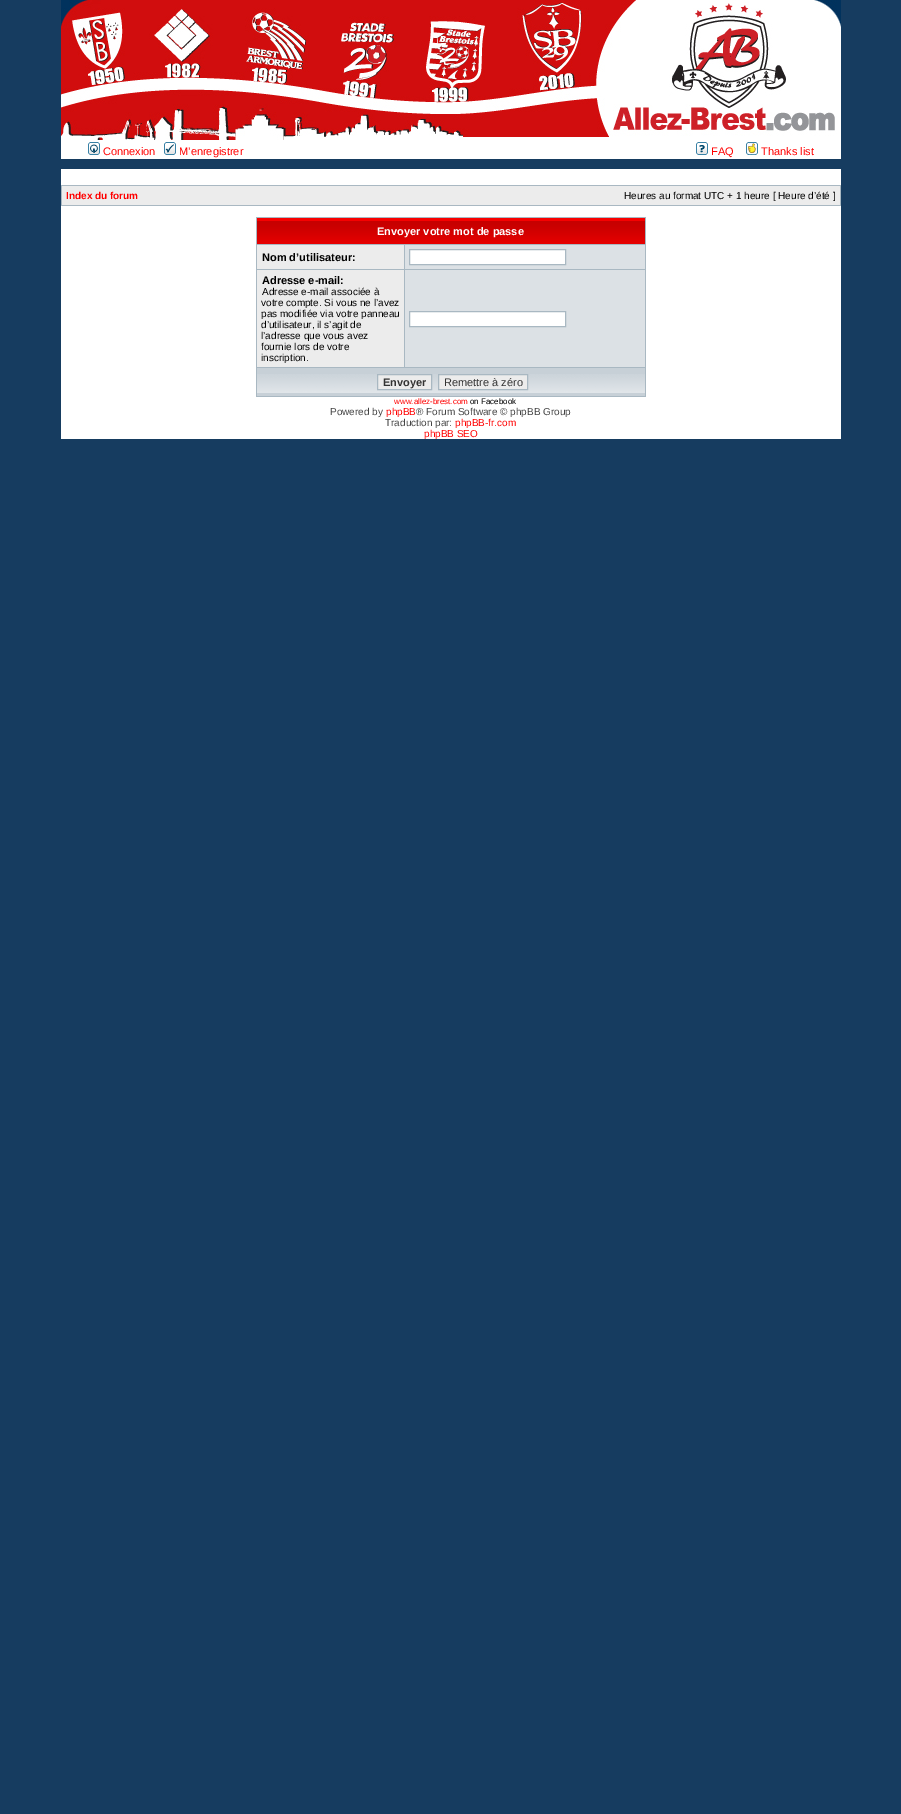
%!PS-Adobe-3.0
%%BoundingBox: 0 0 901 1814
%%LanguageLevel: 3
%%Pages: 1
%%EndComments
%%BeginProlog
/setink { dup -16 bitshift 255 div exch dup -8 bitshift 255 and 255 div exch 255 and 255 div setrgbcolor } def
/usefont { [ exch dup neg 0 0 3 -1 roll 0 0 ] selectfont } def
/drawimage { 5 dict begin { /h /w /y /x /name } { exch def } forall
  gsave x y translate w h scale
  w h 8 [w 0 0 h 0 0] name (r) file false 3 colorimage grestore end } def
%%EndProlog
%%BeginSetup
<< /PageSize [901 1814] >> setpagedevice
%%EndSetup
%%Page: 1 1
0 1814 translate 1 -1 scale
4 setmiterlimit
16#163C60 setink
0 0 901 1814 rectfill
16#FFFFFF setink
61 140 780 19 rectfill
(img1.raw) 61 0 780 140 drawimage
(img2.raw) 88 142 12 13 drawimage
/LiberationSans-Regular 11 usefont
16#FF0000 setink
103 155 moveto (Connexion) show
(img3.raw) 164 142 12 13 drawimage
179 155 moveto (M’enregistrer) show
(img4.raw) 696 142 12 13 drawimage
711 155 moveto (FAQ) show
(img5.raw) 746 142 12 13 drawimage
761 155 moveto (Thanks list) show
[
    [61 169 780 270 16#FFFFFF]
    [61 185 780 21 16#A9B8C2]
    [62 186 778 19 16#ECECEC]
] { aload pop setink rectfill } forall
/LiberationSans-Bold 10 usefont
16#FF0000 setink
66 199 moveto (Index du forum) show
/LiberationSans-Regular 10 usefont
16#000000 setink
624 199 moveto (Heures au format UTC + 1 heure [ Heure d’été ]) show
16#A9B8C2 setink
256 217 390 180 rectfill
(img6.raw) 257 218 388 26 drawimage
/LiberationSans-Bold 11 usefont
16#FFFFFF setink
377 235 moveto (Envoyer votre mot de passe) show
16#ECECEC setink
257 245 147 24 rectfill
16#000000 setink
262 261 moveto (Nom d’utilisateur:) show
16#DCE1E5 setink
405 245 240 24 rectfill
16#FFFFFF setink
409.5 249.5 moveto 565.5 249.5 lineto 565.5 264.5 lineto 409.5 264.5 lineto closepath gsave fill grestore
16#A9B8C2 setink
stroke
16#ECECEC setink
257 270 147 97 rectfill
16#000000 setink
262 284 moveto (Adresse e-mail:) show
/LiberationSans-Regular 10 usefont
[
    [(Adresse e-mail associée à) 262 295]
    [(votre compte. Si vous ne l’avez) 261 306]
    [(pas modifiée via votre panneau) 261 317]
    [(d’utilisateur, il s’agit de) 261 328]
    [(l’adresse que vous avez) 261 339]
    [(fournie lors de votre) 261 350]
    [(inscription.) 261 361]
] { aload pop moveto show } forall
16#DCE1E5 setink
405 270 240 97 rectfill
16#FFFFFF setink
409.5 311.5 moveto 565.5 311.5 lineto 565.5 326.5 lineto 409.5 326.5 lineto closepath gsave fill grestore
16#A9B8C2 setink
stroke
16#C7D0D7 setink
257 368 388 28 rectfill
(img7.raw) 257 374 388 19 drawimage
16#ECECEC setink
377.5 374.5 moveto 431.5 374.5 lineto 431.5 389.5 lineto 377.5 389.5 lineto closepath gsave fill grestore
16#A9B8C2 setink
stroke
/LiberationSans-Bold 11 usefont
16#333333 setink
383 386 moveto (Envoyer) show
16#ECECEC setink
438.5 374.5 moveto 527.5 374.5 lineto 527.5 389.5 lineto 438.5 389.5 lineto closepath gsave fill grestore
16#A9B8C2 setink
stroke
/LiberationSans-Regular 11 usefont
16#333333 setink
444 386 moveto (Remettre à zéro) show
/LiberationSans-Regular 8 usefont
16#FF0000 setink
394 404 moveto (www.allez-brest.com) show
16#000000 setink
470 404 moveto (on Facebook) show
/LiberationSans-Regular 10 usefont
16#444444 setink
330 415 moveto (Powered by) show
16#FF0000 setink
386 415 moveto (phpBB) show
16#444444 setink
416 415 moveto (® Forum Software © phpBB Group) show
385 426 moveto (Traduction par:) show
16#FF0000 setink
455 426 moveto (phpBB-fr.com) show
424 437 moveto (phpBB SEO) show
showpage
%%EOF
